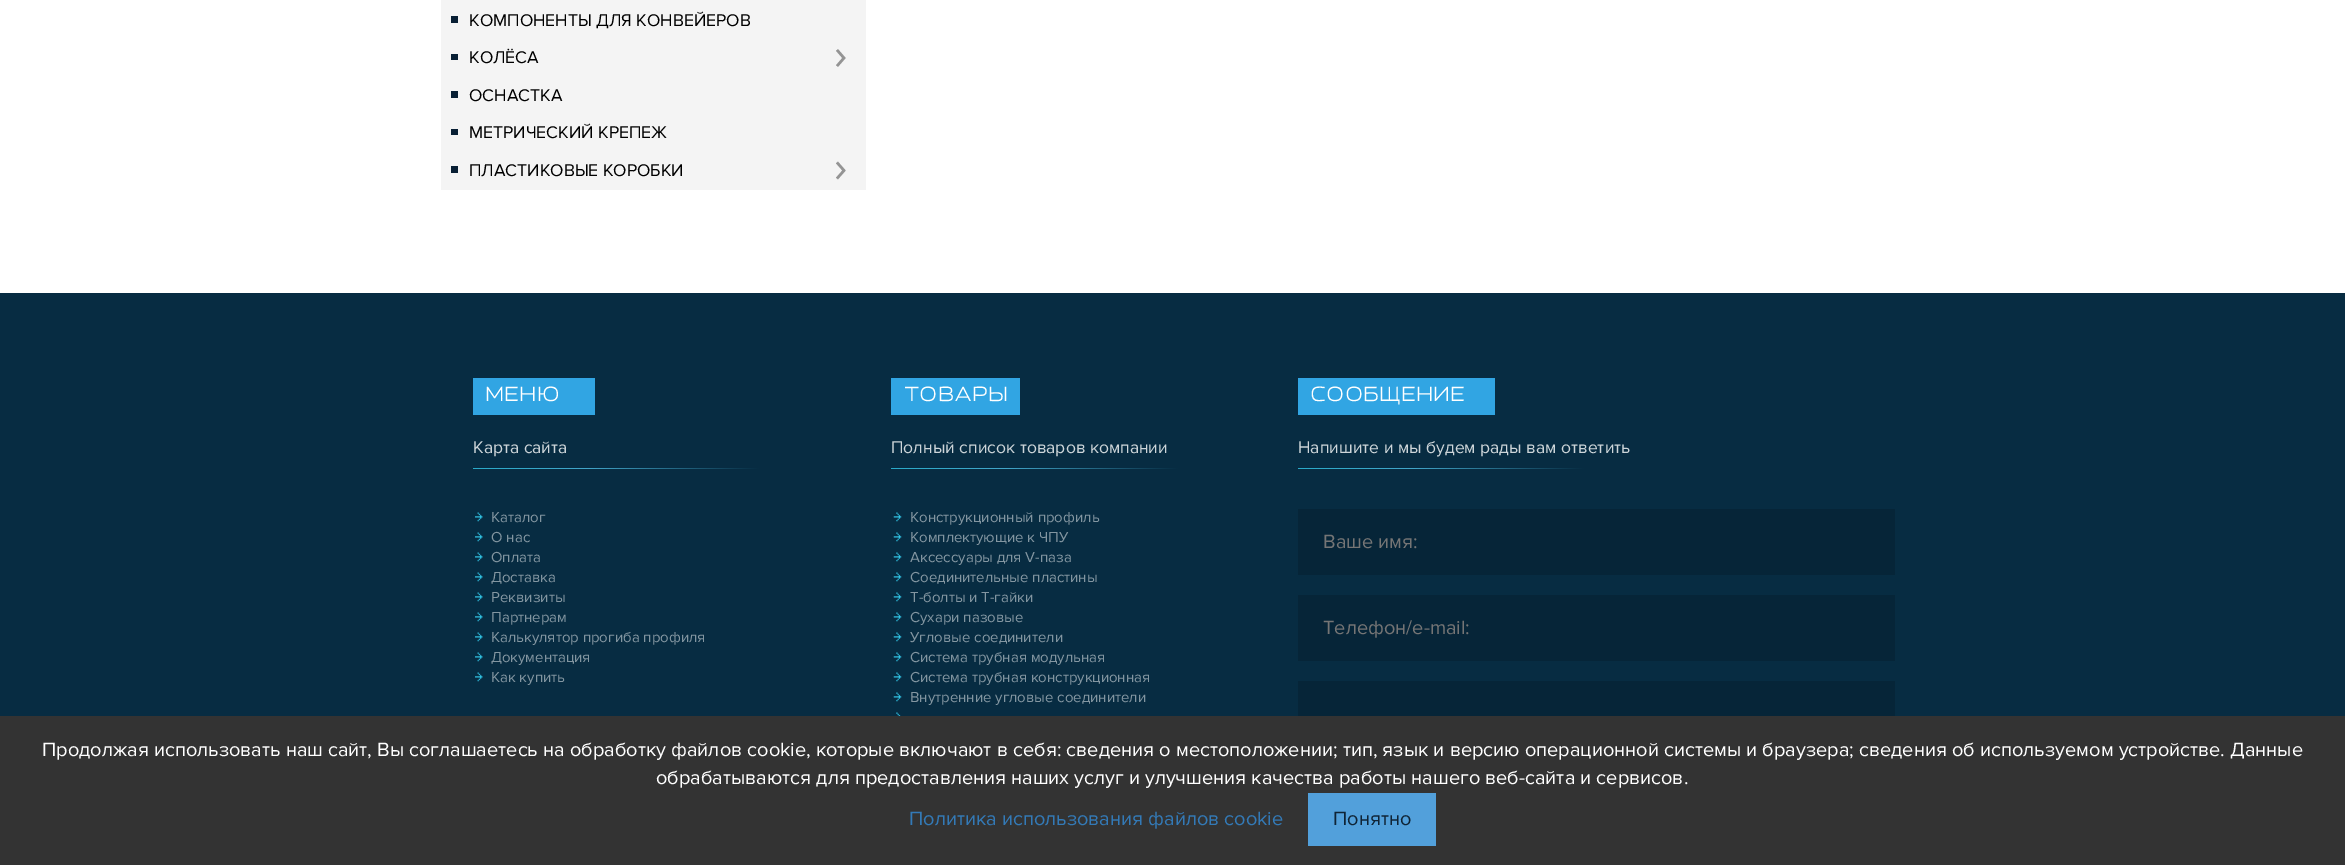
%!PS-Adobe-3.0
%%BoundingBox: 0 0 2345 865
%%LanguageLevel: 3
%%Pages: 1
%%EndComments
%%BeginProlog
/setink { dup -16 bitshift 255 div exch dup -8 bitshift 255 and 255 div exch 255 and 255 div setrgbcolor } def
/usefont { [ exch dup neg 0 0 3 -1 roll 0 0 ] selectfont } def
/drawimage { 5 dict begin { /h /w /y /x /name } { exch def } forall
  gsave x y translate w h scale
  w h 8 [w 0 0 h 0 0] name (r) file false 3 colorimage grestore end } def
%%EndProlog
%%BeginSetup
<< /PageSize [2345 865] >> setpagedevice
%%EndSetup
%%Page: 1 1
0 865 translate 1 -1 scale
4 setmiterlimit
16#FFFFFF setink
0 0 2345 865 rectfill
16#F4F4F4 setink
441 0 425 190 rectfill
16#081F34 setink
451 16 7 7 rectfill
/ProximaNova-Regular 17.5 usefont
16#000000 setink
469 26 moveto (КОМПОНЕНТЫ ДЛЯ КОНВЕЙЕРОВ) show
16#949494 setink
2.5 setlinewidth
837 50 moveto 844 58 lineto 837 66 lineto stroke
16#081F34 setink
451 54 7 6 rectfill
16#000000 setink
469 63 moveto (КОЛЁСА) show
16#081F34 setink
451 91 7 7 rectfill
16#000000 setink
469 101 moveto (ОСНАСТКА) show
16#081F34 setink
451 129 7 6 rectfill
16#000000 setink
469 138 moveto (МЕТРИЧЕСКИЙ КРЕПЕЖ) show
16#949494 setink
837 162.5 moveto 844 170.5 lineto 837 178.5 lineto stroke
16#081F34 setink
451 166 7 7 rectfill
16#000000 setink
469 176 moveto (ПЛАСТИКОВЫЕ КОРОБКИ) show
16#072C42 setink
0 293 2345 423 rectfill
16#31A5E3 setink
473 378 122 37 rectfill
/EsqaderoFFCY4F-Regular 20 usefont
16#FFFFFF setink
485 401 moveto (МЕНЮ) show
/ProximaNova-Regular 17.5 usefont
16#CDD5D9 setink
473 453 moveto (Карта сайта) show
gsave 473 468 moveto 760 468 lineto 760 469 lineto 473 469 lineto closepath clip newpath
<< /ShadingType 2 /ColorSpace /DeviceRGB /Coords [473 468 760 468] /Extend [true true] /Function << /FunctionType 3 /Domain [0 1] /Functions [<< /FunctionType 2 /Domain [0 1] /C0 [0.165 0.667 0.788] /C1 [0.259 0.647 0.784] /N 1 >> << /FunctionType 2 /Domain [0 1] /C0 [0.259 0.647 0.784] /C1 [0.027 0.173 0.259] /N 1 >>] /Bounds [0.4] /Encode [0 1 0 1] >> >> shfill grestore
(img1.raw) 475 512 8 10 drawimage
/ProximaNova-Regular 15 usefont
16#8396A1 setink
491 522 moveto (Каталог) show
(img1.raw) 475 532 8 10 drawimage
491 542 moveto (О нас) show
(img1.raw) 475 552 8 10 drawimage
491 562 moveto (Оплата) show
(img1.raw) 475 572 8 10 drawimage
491 582 moveto (Доставка) show
(img1.raw) 475 592 8 10 drawimage
491 602 moveto (Реквизиты) show
(img1.raw) 475 612 8 10 drawimage
491 622 moveto (Партнерам) show
(img1.raw) 475 632 8 10 drawimage
491 642 moveto (Калькулятор прогиба профиля) show
(img1.raw) 475 652 8 10 drawimage
491 662 moveto (Документация) show
(img1.raw) 475 672 8 10 drawimage
491 682 moveto (Как купить) show
16#31A5E3 setink
891 378 129 37 rectfill
/EsqaderoFFCY4F-Regular 20 usefont
16#FFFFFF setink
904 401 moveto (ТОВАРЫ) show
/ProximaNova-Regular 17.5 usefont
16#CDD5D9 setink
891 453 moveto (Полный список товаров компании) show
gsave 891 468 moveto 1179 468 lineto 1179 469 lineto 891 469 lineto closepath clip newpath
<< /ShadingType 2 /ColorSpace /DeviceRGB /Coords [891 468 1179 468] /Extend [true true] /Function << /FunctionType 3 /Domain [0 1] /Functions [<< /FunctionType 2 /Domain [0 1] /C0 [0.165 0.667 0.788] /C1 [0.259 0.647 0.784] /N 1 >> << /FunctionType 2 /Domain [0 1] /C0 [0.259 0.647 0.784] /C1 [0.027 0.173 0.259] /N 1 >>] /Bounds [0.4] /Encode [0 1 0 1] >> >> shfill grestore
(img2.raw) 893 512 9 10 drawimage
/ProximaNova-Regular 15 usefont
16#8396A1 setink
910 522 moveto (Конструкционный профиль) show
(img2.raw) 893 532 9 10 drawimage
910 542 moveto (Комплектующие к ЧПУ) show
(img2.raw) 893 552 9 10 drawimage
910 562 moveto (Аксессуары для V-паза) show
(img2.raw) 893 572 9 10 drawimage
910 582 moveto (Соединительные пластины) show
(img2.raw) 893 592 9 10 drawimage
910 602 moveto (Т-болты и Т-гайки) show
(img2.raw) 893 612 9 10 drawimage
910 622 moveto (Сухари пазовые) show
(img2.raw) 893 632 9 10 drawimage
910 642 moveto (Угловые соединители) show
(img2.raw) 893 652 9 10 drawimage
910 662 moveto (Система трубная модульная) show
(img2.raw) 893 672 9 10 drawimage
910 682 moveto (Система трубная конструкционная) show
(img2.raw) 893 692 9 10 drawimage
910 702 moveto (Внутренние угловые соединители) show
(img3.raw) 896 712 5 4 drawimage
16#31A5E3 setink
1298 378 197 37 rectfill
/EsqaderoFFCY4F-Regular 20 usefont
16#FFFFFF setink
1310 401 moveto (СООБЩЕНИЕ) show
/ProximaNova-Regular 17.5 usefont
16#CDD5D9 setink
1298 453 moveto (Напишите и мы будем рады вам ответить) show
gsave 1298 468 moveto 1585 468 lineto 1585 469 lineto 1298 469 lineto closepath clip newpath
<< /ShadingType 2 /ColorSpace /DeviceRGB /Coords [1298 468 1585 468] /Extend [true true] /Function << /FunctionType 3 /Domain [0 1] /Functions [<< /FunctionType 2 /Domain [0 1] /C0 [0.165 0.667 0.788] /C1 [0.259 0.647 0.784] /N 1 >> << /FunctionType 2 /Domain [0 1] /C0 [0.259 0.647 0.784] /C1 [0.027 0.173 0.259] /N 1 >>] /Bounds [0.4] /Encode [0 1 0 1] >> >> shfill grestore
16#062538 setink
1298 509 597 66 rectfill
/ProximaNova-Regular 20 usefont
16#757575 setink
1323 548 moveto (Ваше имя:) show
16#062538 setink
1298 595 597 66 rectfill
16#757575 setink
1323 634 moveto (Телефон/e-mail:) show
16#062538 setink
1298 681 597 35 rectfill
16#333333 setink
0 716 2345 149 rectfill
16#FFFFFF setink
42 756 moveto (Продолжая использовать наш сайт, Вы соглашаетесь на обработку файлов cookie, которые включают в себя: сведения о местоположении; тип, язык и версию операционной системы и браузера; сведения об используемом устройстве. Данные) show
656 784 moveto (обрабатываются для предоставления наших услуг и улучшения качества работы нашего веб-сайта и сервисов.) show
16#337AB7 setink
909 825 moveto (Политика использования файлов cookie) show
16#52A0DB setink
1308 793 128 53 rectfill
16#0F2436 setink
1333 825 moveto (Понятно) show
showpage
%%EOF
